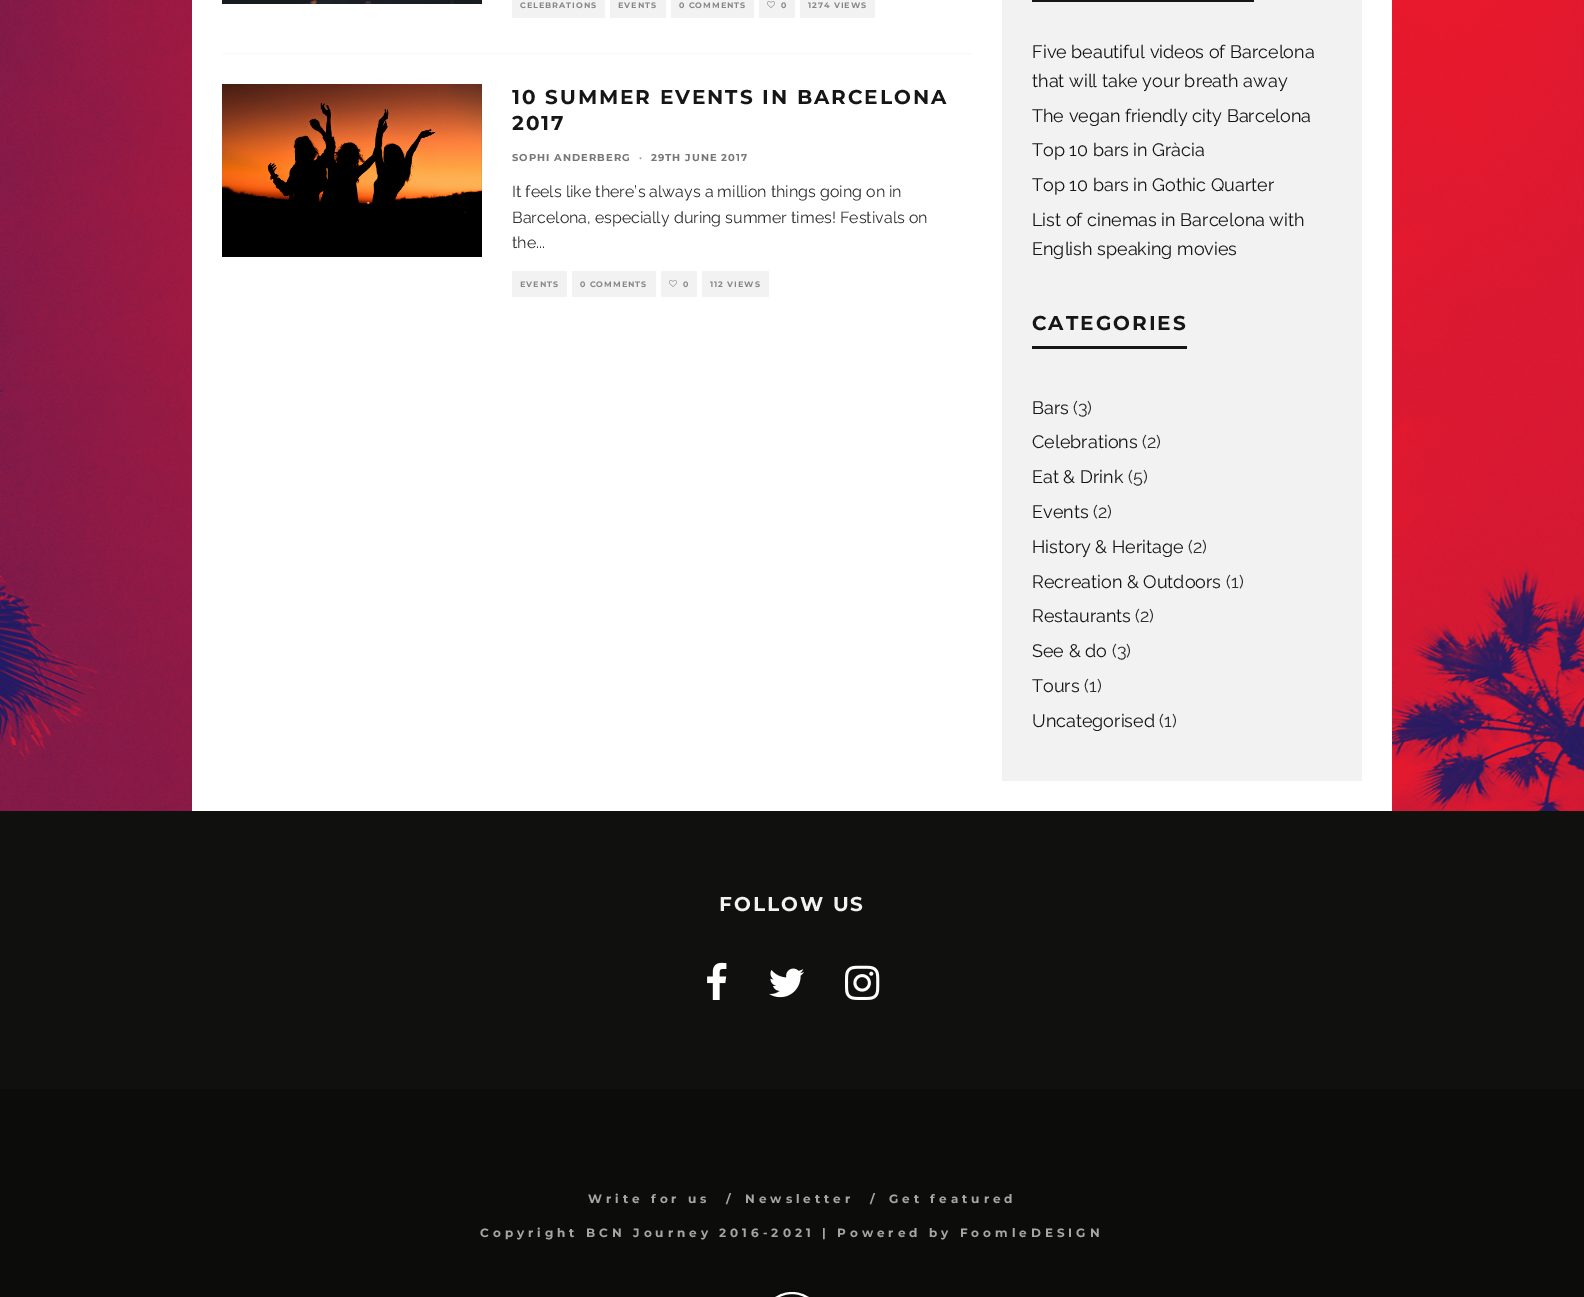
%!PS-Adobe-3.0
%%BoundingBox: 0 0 1584 1297
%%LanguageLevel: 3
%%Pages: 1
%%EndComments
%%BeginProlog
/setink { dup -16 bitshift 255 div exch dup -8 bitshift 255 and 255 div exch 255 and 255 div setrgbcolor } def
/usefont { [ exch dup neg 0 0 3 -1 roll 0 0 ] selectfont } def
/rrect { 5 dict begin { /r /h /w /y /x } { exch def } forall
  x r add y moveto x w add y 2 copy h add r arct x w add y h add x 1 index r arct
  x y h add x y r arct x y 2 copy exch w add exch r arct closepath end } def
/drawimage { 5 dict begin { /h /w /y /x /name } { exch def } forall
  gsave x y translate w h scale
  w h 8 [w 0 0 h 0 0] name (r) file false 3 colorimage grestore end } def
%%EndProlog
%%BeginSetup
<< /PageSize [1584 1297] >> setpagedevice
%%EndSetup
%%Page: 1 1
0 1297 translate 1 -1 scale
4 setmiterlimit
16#FFFFFF setink
0 0 1584 1297 rectfill
(img1.raw) 0 0 1584 811 drawimage
192 0 1200 811 rectfill
16#F2F2F2 setink
[1 1] 0 setdash
222 53.5 moveto 972 53.5 lineto stroke
(img2.raw) 222 0 260 4 drawimage
512 0 93 18 rectfill
/Montserrat-Bold 8 usefont
16#868686 setink
520 8 moveto 1 0 (CELEBRATIONS) ashow
16#F2F2F2 setink
610 0 56 18 rectfill
16#868686 setink
618 8 moveto 1 0 (EVENTS) ashow
16#F2F2F2 setink
671 0 83 18 rectfill
16#868686 setink
679 8 moveto 1 0 (0 COMMENTS) ashow
16#F2F2F2 setink
759 0 36 18 rectfill
(img3.raw) 767 1 8 7 drawimage
16#868686 setink
781 8 moveto 1 0 (0) ashow
16#F2F2F2 setink
800 0 75 18 rectfill
16#868686 setink
808 8 moveto 1 0 (1274 VIEWS) ashow
(img4.raw) 222 84 260 173 drawimage
/Montserrat-Bold 20 usefont
16#161616 setink
512 104 moveto 2 0 (10 SUMMER EVENTS IN BARCELONA) ashow
512 130 moveto 2 0 (2017) ashow
/Montserrat-Bold 10 usefont
16#777777 setink
512 161 moveto 1 0 (SOPHI ANDERBERG) ashow
16#A0A0A0 setink
639 161 moveto 1 0 (·) ashow
16#777777 setink
651 161 moveto 1 0 (29TH JUNE 2017) ashow
/Raleway-Regular 16 usefont
16#2E2E2E setink
[
    [(It feels like there’s always a million things going on in) 512 197]
    [(Barcelona, especially during summer times! Festivals on) 512 223]
    [(the...) 512 248]
] { aload pop moveto show } forall
16#F2F2F2 setink
512 271 55 26 rectfill
/Montserrat-Bold 8 usefont
16#868686 setink
520 287 moveto 1 0 (EVENTS) ashow
16#F2F2F2 setink
572 271 84 26 rectfill
16#868686 setink
580 287 moveto 1 0 (0 COMMENTS) ashow
16#F2F2F2 setink
661 271 36 26 rectfill
(img3.raw) 669 280 8 7 drawimage
16#868686 setink
683 287 moveto 1 0 (0) ashow
16#F2F2F2 setink
702 271 67 26 rectfill
16#868686 setink
710 287 moveto 1 0 (112 VIEWS) ashow
16#F2F2F2 setink
1002 0 360 781 rectfill
16#161616 setink
1032 0 222 2 rectfill
/Raleway-Regular 18 usefont
[
    [(Five beautiful videos of Barcelona) 1032 58]
    [(that will take your breath away) 1032 87]
    [(The vegan friendly city Barcelona) 1032 122]
    [(Top 10 bars in Gràcia) 1032 156]
    [(Top 10 bars in Gothic Quarter) 1032 191]
    [(List of cinemas in Barcelona with) 1032 226]
    [(English speaking movies) 1032 255]
] { aload pop moveto show } forall
1032 346 155 3 rectfill
/Montserrat-Bold 20 usefont
1032 330 moveto 2 0 (CATEGORIES) ashow
/Raleway-Regular 18 usefont
1032 414 moveto (Bars) show
16#2E2E2E setink
1073 414 moveto (\(3\)) show
16#161616 setink
1032 448 moveto (Celebrations) show
16#2E2E2E setink
1142 448 moveto (\(2\)) show
16#161616 setink
1032 483 moveto (Eat & Drink) show
16#2E2E2E setink
1128 483 moveto (\(5\)) show
16#161616 setink
1032 518 moveto (Events) show
16#2E2E2E setink
1093 518 moveto (\(2\)) show
16#161616 setink
1032 553 moveto (History & Heritage) show
16#2E2E2E setink
1188 553 moveto (\(2\)) show
16#161616 setink
1032 588 moveto (Recreation & Outdoors) show
16#2E2E2E setink
1226 588 moveto (\(1\)) show
16#161616 setink
1032 622 moveto (Restaurants) show
16#2E2E2E setink
1135 622 moveto (\(2\)) show
16#161616 setink
1032 657 moveto (See & do) show
16#2E2E2E setink
1112 657 moveto (\(3\)) show
16#161616 setink
1032 692 moveto (Tours) show
16#2E2E2E setink
1084 692 moveto (\(1\)) show
16#161616 setink
1032 727 moveto (Uncategorised) show
16#2E2E2E setink
1159 727 moveto (\(1\)) show
16#10100F setink
0 811 1584 278 rectfill
/Montserrat-Bold 20 usefont
16#F2F2F2 setink
719 911 moveto 2 0 (FOLLOW US) ashow
(img5.raw) 707 962 20 38 drawimage
(img6.raw) 769 968 35 30 drawimage
(img7.raw) 845 965 35 35 drawimage
16#0C0C0B setink
0 1089 1584 208 rectfill
/Montserrat-Bold 12 usefont
16#A6A6A6 setink
588 1203 moveto 4 0 (Write for us) ashow
726 1203 moveto 4 0 (/) ashow
745 1203 moveto 4 0 (Newsletter) ashow
870 1203 moveto 4 0 (/) ashow
889 1203 moveto 4 0 (Get featured) ashow
480 1237 moveto 4 0 (Copyright BCN Journey 2016-2021 | Powered by FoomleDESIGN) ashow
16#FFFFFF setink
2 setlinewidth
[] 0 setdash
763 1293 58 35 29 rrect stroke
showpage
%%EOF
